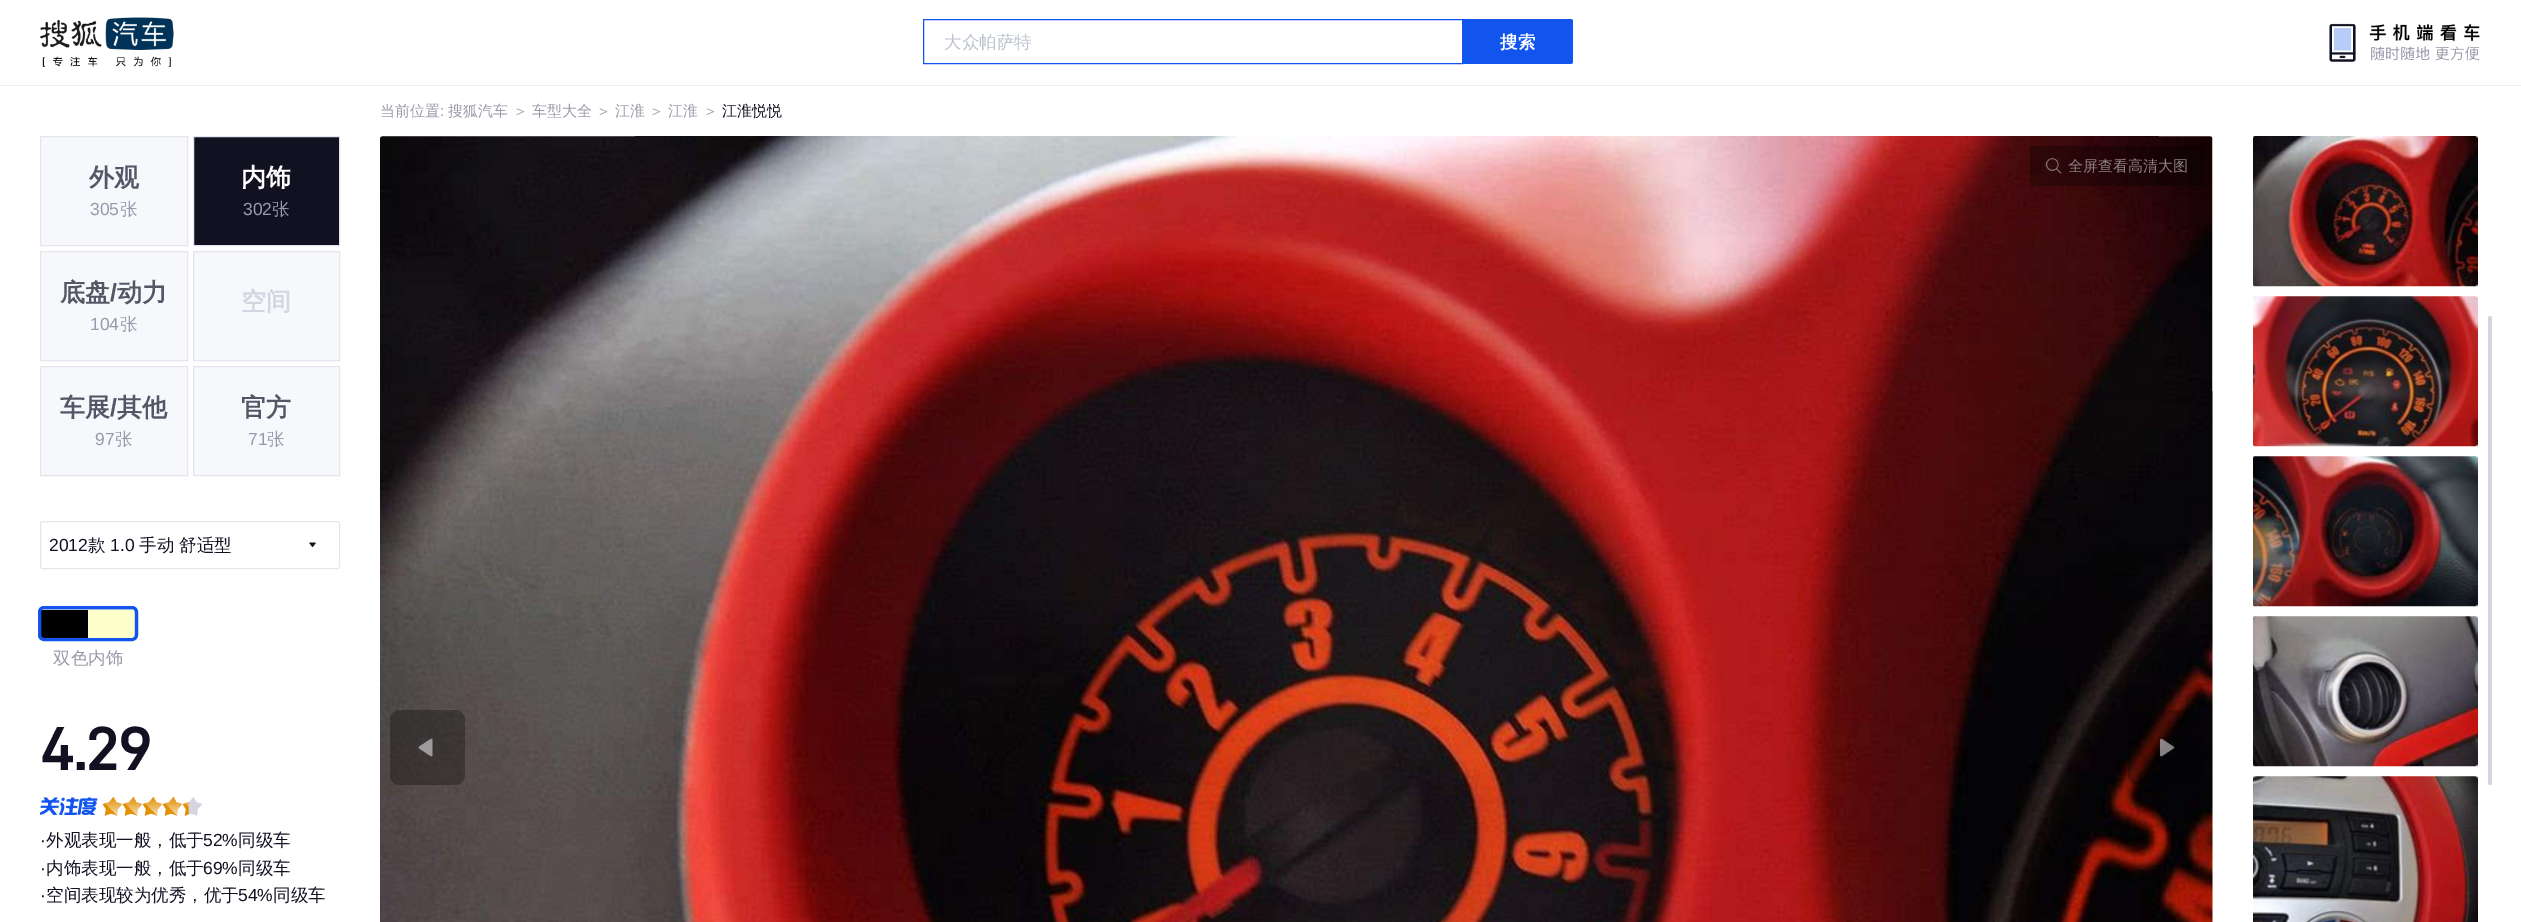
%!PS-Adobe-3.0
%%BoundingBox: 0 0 2521 922
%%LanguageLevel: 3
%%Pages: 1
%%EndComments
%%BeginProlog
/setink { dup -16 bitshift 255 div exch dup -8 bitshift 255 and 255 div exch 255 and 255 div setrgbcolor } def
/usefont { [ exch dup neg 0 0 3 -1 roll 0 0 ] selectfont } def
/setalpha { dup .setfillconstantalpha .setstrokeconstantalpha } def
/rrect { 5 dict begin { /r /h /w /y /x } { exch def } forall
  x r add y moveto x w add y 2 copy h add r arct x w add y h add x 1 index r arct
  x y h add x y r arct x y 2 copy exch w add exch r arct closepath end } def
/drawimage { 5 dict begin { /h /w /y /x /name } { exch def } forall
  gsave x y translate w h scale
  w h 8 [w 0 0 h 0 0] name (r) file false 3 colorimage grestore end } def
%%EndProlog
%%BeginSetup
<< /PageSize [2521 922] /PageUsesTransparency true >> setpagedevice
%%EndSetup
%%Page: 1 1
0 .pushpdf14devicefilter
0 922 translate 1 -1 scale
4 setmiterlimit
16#FFFFFF setink
0 0 2521 922 rectfill
16#EEEEF0 setink
0 85 2521 1 rectfill
(img1.raw) 40 17 134 50 drawimage
16#1155EE setink
923.5 19.5 539 44 rectstroke
/WenQuanYiZenHei-Medium 17.5 usefont
16#BBC2CC setink
944 48 moveto (大众帕萨特) show
16#1155EE setink
1463 19 moveto 1570.5 19 lineto 1572 19 1573 20 1573 21.5 curveto 1573 61.5 lineto 1573 63 1572 64 1570.5 64 curveto 1463 64 lineto closepath fill
/WenQuanYiZenHei-Bold 17.5 usefont
16#FFFFFF setink
1500 48 moveto (搜索) show
(img2.raw) 2329 23 151 39 drawimage
/WenQuanYiZenHei-Medium 15 usefont
16#9999AA setink
380 116 moveto (当前位置) show
/LiberationSans-Regular 15 usefont
440 116 moveto (:) show
/WenQuanYiZenHei-Medium 15 usefont
[
    [(搜狐汽车) 448 116]
    [(＞) 513 116]
    [(车型大全) 532 116]
    [(＞) 596 116]
    [(江淮) 615 116]
    [(＞) 649 116]
    [(江淮) 668 116]
    [(＞) 703 116]
] { aload pop moveto show } forall
16#111122 setink
722 116 moveto (江淮悦悦) show
16#F7F8FC setink
40.5 136.5 moveto 187.5 136.5 lineto 187.5 245.5 lineto 40.5 245.5 lineto closepath gsave fill grestore
16#E5E5EE setink
stroke
/WenQuanYiZenHei-Bold 25 usefont
16#555566 setink
89 186 moveto (外观) show
/LiberationSans-Regular 17.5 usefont
16#9999AA setink
90 215 moveto (305) show
/WenQuanYiZenHei-Medium 17.5 usefont
120 215 moveto (张) show
16#111122 setink
193.5 136.5 moveto 339.5 136.5 lineto 339.5 245.5 lineto 193.5 245.5 lineto closepath gsave fill grestore
16#E5E5EE setink
stroke
/WenQuanYiZenHei-Bold 25 usefont
16#FFFFFF setink
241 186 moveto (内饰) show
/LiberationSans-Regular 17.5 usefont
16#9999AA setink
243 215 moveto (302) show
/WenQuanYiZenHei-Medium 17.5 usefont
272 215 moveto (张) show
16#F7F8FC setink
40.5 251.5 moveto 187.5 251.5 lineto 187.5 360.5 lineto 40.5 360.5 lineto closepath gsave fill grestore
16#E5E5EE setink
stroke
/WenQuanYiZenHei-Bold 25 usefont
16#555566 setink
60 301 moveto (底盘) show
/LiberationSans-Bold 25 usefont
110 301 moveto (/) show
/WenQuanYiZenHei-Bold 25 usefont
117 301 moveto (动力) show
/LiberationSans-Regular 17.5 usefont
16#9999AA setink
90 330 moveto (104) show
/WenQuanYiZenHei-Medium 17.5 usefont
120 330 moveto (张) show
16#F7F8FC setink
193.5 251.5 moveto 339.5 251.5 lineto 339.5 360.5 lineto 193.5 360.5 lineto closepath gsave fill grestore
16#E5E5EE setink
stroke
/WenQuanYiZenHei-Bold 25 usefont
16#D5D5E2 setink
241 310 moveto (空间) show
16#F7F8FC setink
40.5 366.5 moveto 187.5 366.5 lineto 187.5 475.5 lineto 40.5 475.5 lineto closepath gsave fill grestore
16#E5E5EE setink
stroke
16#555566 setink
60 416 moveto (车展) show
/LiberationSans-Bold 25 usefont
110 416 moveto (/) show
/WenQuanYiZenHei-Bold 25 usefont
117 416 moveto (其他) show
/LiberationSans-Regular 17.5 usefont
16#9999AA setink
95 445 moveto (97) show
/WenQuanYiZenHei-Medium 17.5 usefont
115 445 moveto (张) show
16#F7F8FC setink
193.5 366.5 moveto 339.5 366.5 lineto 339.5 475.5 lineto 193.5 475.5 lineto closepath gsave fill grestore
16#E5E5EE setink
stroke
/WenQuanYiZenHei-Bold 25 usefont
16#555566 setink
241 416 moveto (官方) show
/LiberationSans-Regular 17.5 usefont
16#9999AA setink
248 445 moveto (71) show
/WenQuanYiZenHei-Medium 17.5 usefont
267 445 moveto (张) show
16#E5E5EE setink
40.5 521.5 299 47 2 rrect stroke
/LiberationSans-Regular 17.5 usefont
16#111122 setink
49 551 moveto (2012) show
/WenQuanYiZenHei-Medium 17.5 usefont
88 551 moveto (款) show
/LiberationSans-Regular 17.5 usefont
110 551 moveto (1.0) show
/WenQuanYiZenHei-Medium 17.5 usefont
139 551 moveto (手动 舒适型) show
(img3.raw) 309 542 7 6 drawimage
16#D5D5E2 setink
40.5 609.5 94 29 2 rrect stroke
16#000000 setink
42 610 moveto 88 610 lineto 88 638 lineto 42 638 lineto 41.5 638 41 637.5 41 637 curveto 41 611 lineto 41 610.5 41.5 610 42 610 curveto closepath fill
16#FFFFCC setink
88 610 moveto 133 610 lineto 133.5 610 134 610.5 134 611 curveto 134 637 lineto 134 637.5 133.5 638 133 638 curveto 88 638 lineto closepath fill
16#1155EE setink
3 setlinewidth
39.5 607.5 97 32 4.5 rrect stroke
gsave
53 649 70 17 rectclip
16#9999AA setink
53 664 moveto (双色内饰) show
grestore
/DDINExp-Bold 60 usefont
16#111122 setink
40 770 moveto (4.29) show
(img4.raw) 40 797 58 18 drawimage
(img8.raw) 102 797 21 19 drawimage
(img9.raw) 122 797 21 19 drawimage
(img5.raw) 102 796 21 20 drawimage
(img9.raw) 142 797 21 19 drawimage
(img6.raw) 122 796 21 20 drawimage
(img9.raw) 162 797 21 19 drawimage
(img6.raw) 142 796 21 20 drawimage
(img9.raw) 182 797 21 19 drawimage
(img6.raw) 162 796 21 20 drawimage
(img7.raw) 182 802 7 14 drawimage
/LiberationSans-Regular 17.5 usefont
40 846 moveto (·) show
/WenQuanYiZenHei-Medium 17.5 usefont
46 846 moveto (外观表现一般，低于) show
/LiberationSans-Regular 17.5 usefont
203 846 moveto (52%) show
/WenQuanYiZenHei-Medium 17.5 usefont
238 846 moveto (同级车) show
/LiberationSans-Regular 17.5 usefont
40 874 moveto (·) show
/WenQuanYiZenHei-Medium 17.5 usefont
46 874 moveto (内饰表现一般，低于) show
/LiberationSans-Regular 17.5 usefont
203 874 moveto (69%) show
/WenQuanYiZenHei-Medium 17.5 usefont
238 874 moveto (同级车) show
/LiberationSans-Regular 17.5 usefont
40 901 moveto (·) show
/WenQuanYiZenHei-Medium 17.5 usefont
46 901 moveto (空间表现较为优秀，优于) show
/LiberationSans-Regular 17.5 usefont
238 901 moveto (54%) show
/WenQuanYiZenHei-Medium 17.5 usefont
273 901 moveto (同级车) show
(img10.raw) 380 136 1833 786 drawimage
0.3 setalpha
16#000000 setink
2030 146 173 40 2.5 rrect fill
1 setalpha
(img11.raw) 2045 158 17 16 drawimage
/WenQuanYiZenHei-Medium 15 usefont
16#8F8183 setink
2068 171 moveto (全屏查看高清大图) show
0.3 setalpha
16#000000 setink
390 710 75 75 10 rrect fill
1 setalpha
(img12.raw) 418 738 15 19 drawimage
0.3 setalpha
2128 710 75 75 10 rrect fill
1 setalpha
(img13.raw) 2160 738 15 19 drawimage
(img14.raw) 2253 136 225 151 drawimage
(img15.raw) 2253 296 225 151 drawimage
(img16.raw) 2253 456 225 151 drawimage
(img17.raw) 2253 616 225 151 drawimage
(img18.raw) 2253 776 225 146 drawimage
16#D5D5E2 setink
2488 316 4 469 2 rrect fill
.poppdf14devicefilter showpage
%%EOF
